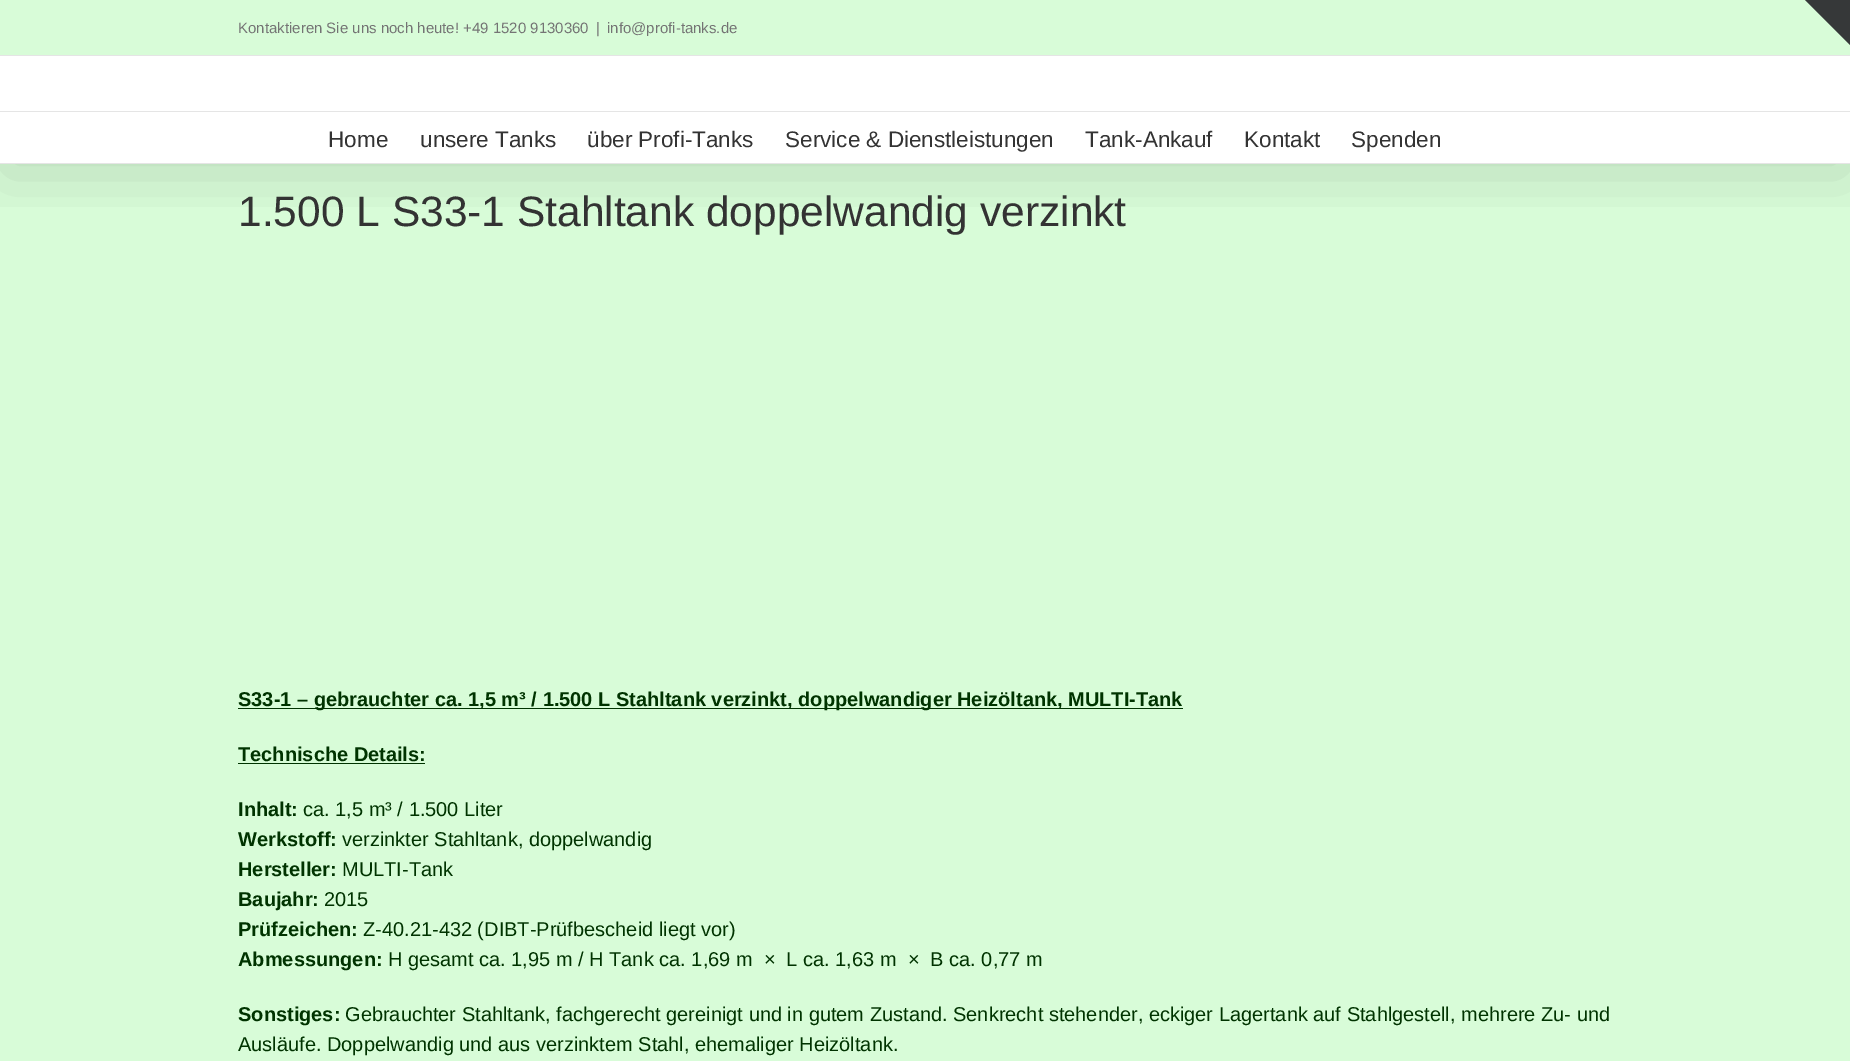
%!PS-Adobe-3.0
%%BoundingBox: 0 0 1850 1061
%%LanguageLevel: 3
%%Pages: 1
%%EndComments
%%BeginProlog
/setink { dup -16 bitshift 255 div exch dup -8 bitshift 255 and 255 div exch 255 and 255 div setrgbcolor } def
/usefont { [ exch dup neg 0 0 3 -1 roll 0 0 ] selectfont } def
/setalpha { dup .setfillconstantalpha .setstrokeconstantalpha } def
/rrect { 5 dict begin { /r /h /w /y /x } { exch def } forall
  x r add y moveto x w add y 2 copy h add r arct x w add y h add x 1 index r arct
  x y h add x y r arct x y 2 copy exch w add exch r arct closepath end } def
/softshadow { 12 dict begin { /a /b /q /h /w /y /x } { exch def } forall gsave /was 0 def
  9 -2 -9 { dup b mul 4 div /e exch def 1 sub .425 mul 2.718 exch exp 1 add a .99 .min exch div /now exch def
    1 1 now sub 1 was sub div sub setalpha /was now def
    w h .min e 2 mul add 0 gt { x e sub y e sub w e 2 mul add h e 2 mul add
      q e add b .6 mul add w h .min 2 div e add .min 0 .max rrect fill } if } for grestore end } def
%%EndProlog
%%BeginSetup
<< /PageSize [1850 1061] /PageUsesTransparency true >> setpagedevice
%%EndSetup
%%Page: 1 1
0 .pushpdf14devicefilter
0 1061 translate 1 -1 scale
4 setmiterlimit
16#D8FCD8 setink
0 0 1850 1061 rectfill
gsave
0 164 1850 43 rectclip
16#000000 setink
3 15 1845 159 0 31 0.14 softshadow
grestore
16#E5E5E5 setink
0 55 1850 1 rectfill
/LiberationSans-Regular 15 usefont
16#747474 setink
[
    [(Kontaktieren Sie uns noch heute! +49 1520 9130360) 238 33]
    [(|) 596 33]
    [(info@profi-tanks.de) 607 33]
] { aload pop moveto show } forall
[
    [0 56 1850 107 16#FFFFFF]
    [0 111 1850 1 16#E5E5E5]
    [0 163 1850 1 16#E5E5E5]
] { aload pop setink rectfill } forall
/LiberationSans-Regular 22.5 usefont
16#333333 setink
[
    [(Home) 328 147]
    [(unsere Tanks) 420 147]
    [(über Profi-Tanks) 587 147]
    [(Service & Dienstleistungen) 785 147]
    [(Tank-Ankauf) 1085 147]
    [(Kontakt) 1244 147]
    [(Spenden) 1351 147]
] { aload pop moveto show } forall
16#363839 setink
1805 0 moveto 1850 0 lineto 1850 45 lineto closepath fill
/LiberationSans-Regular 42.5 usefont
16#333333 setink
238 226 moveto (1.500 L S33-1 Stahltank doppelwandig verzinkt) show
16#003300 setink
238 708 945 1 rectfill
/LiberationSans-Bold 20 usefont
238 706 moveto (S33-1 – gebrauchter ca. 1,5 m³ / 1.500 L Stahltank verzinkt, doppelwandiger Heizöltank, MULTI-Tank) show
238 761 moveto (Technische Details:) show
238 763 187 1 rectfill
238 816 moveto (Inhalt:) show
/LiberationSans-Regular 20 usefont
303 816 moveto (ca. 1,5 m³ / 1.500 Liter) show
/LiberationSans-Bold 20 usefont
238 846 moveto (Werkstoff:) show
/LiberationSans-Regular 20 usefont
342 846 moveto (verzinkter Stahltank, doppelwandig) show
/LiberationSans-Bold 20 usefont
238 876 moveto (Hersteller:) show
/LiberationSans-Regular 20 usefont
342 876 moveto (MULTI-Tank) show
/LiberationSans-Bold 20 usefont
238 906 moveto (Baujahr:) show
/LiberationSans-Regular 20 usefont
324 906 moveto (2015) show
/LiberationSans-Bold 20 usefont
238 936 moveto (Prüfzeichen:) show
/LiberationSans-Regular 20 usefont
363 936 moveto (Z-40.21-432 \(DIBT-Prüfbescheid liegt vor\)) show
/LiberationSans-Bold 20 usefont
238 966 moveto (Abmessungen:) show
/LiberationSans-Regular 20 usefont
388 966 moveto (H gesamt ca. 1,95 m / H Tank ca. 1,69 m  ×  L ca. 1,63 m  ×  B ca. 0,77 m) show
/LiberationSans-Bold 20 usefont
238 1021 moveto (Sonstiges:) show
/LiberationSans-Regular 20 usefont
345 1021 moveto (Gebrauchter Stahltank, fachgerecht gereinigt und in gutem Zustand. Senkrecht stehender, eckiger Lagertank auf Stahlgestell, mehrere Zu- und) show
238 1051 moveto (Ausläufe. Doppelwandig und aus verzinktem Stahl, ehemaliger Heizöltank.) show
.poppdf14devicefilter showpage
%%EOF
